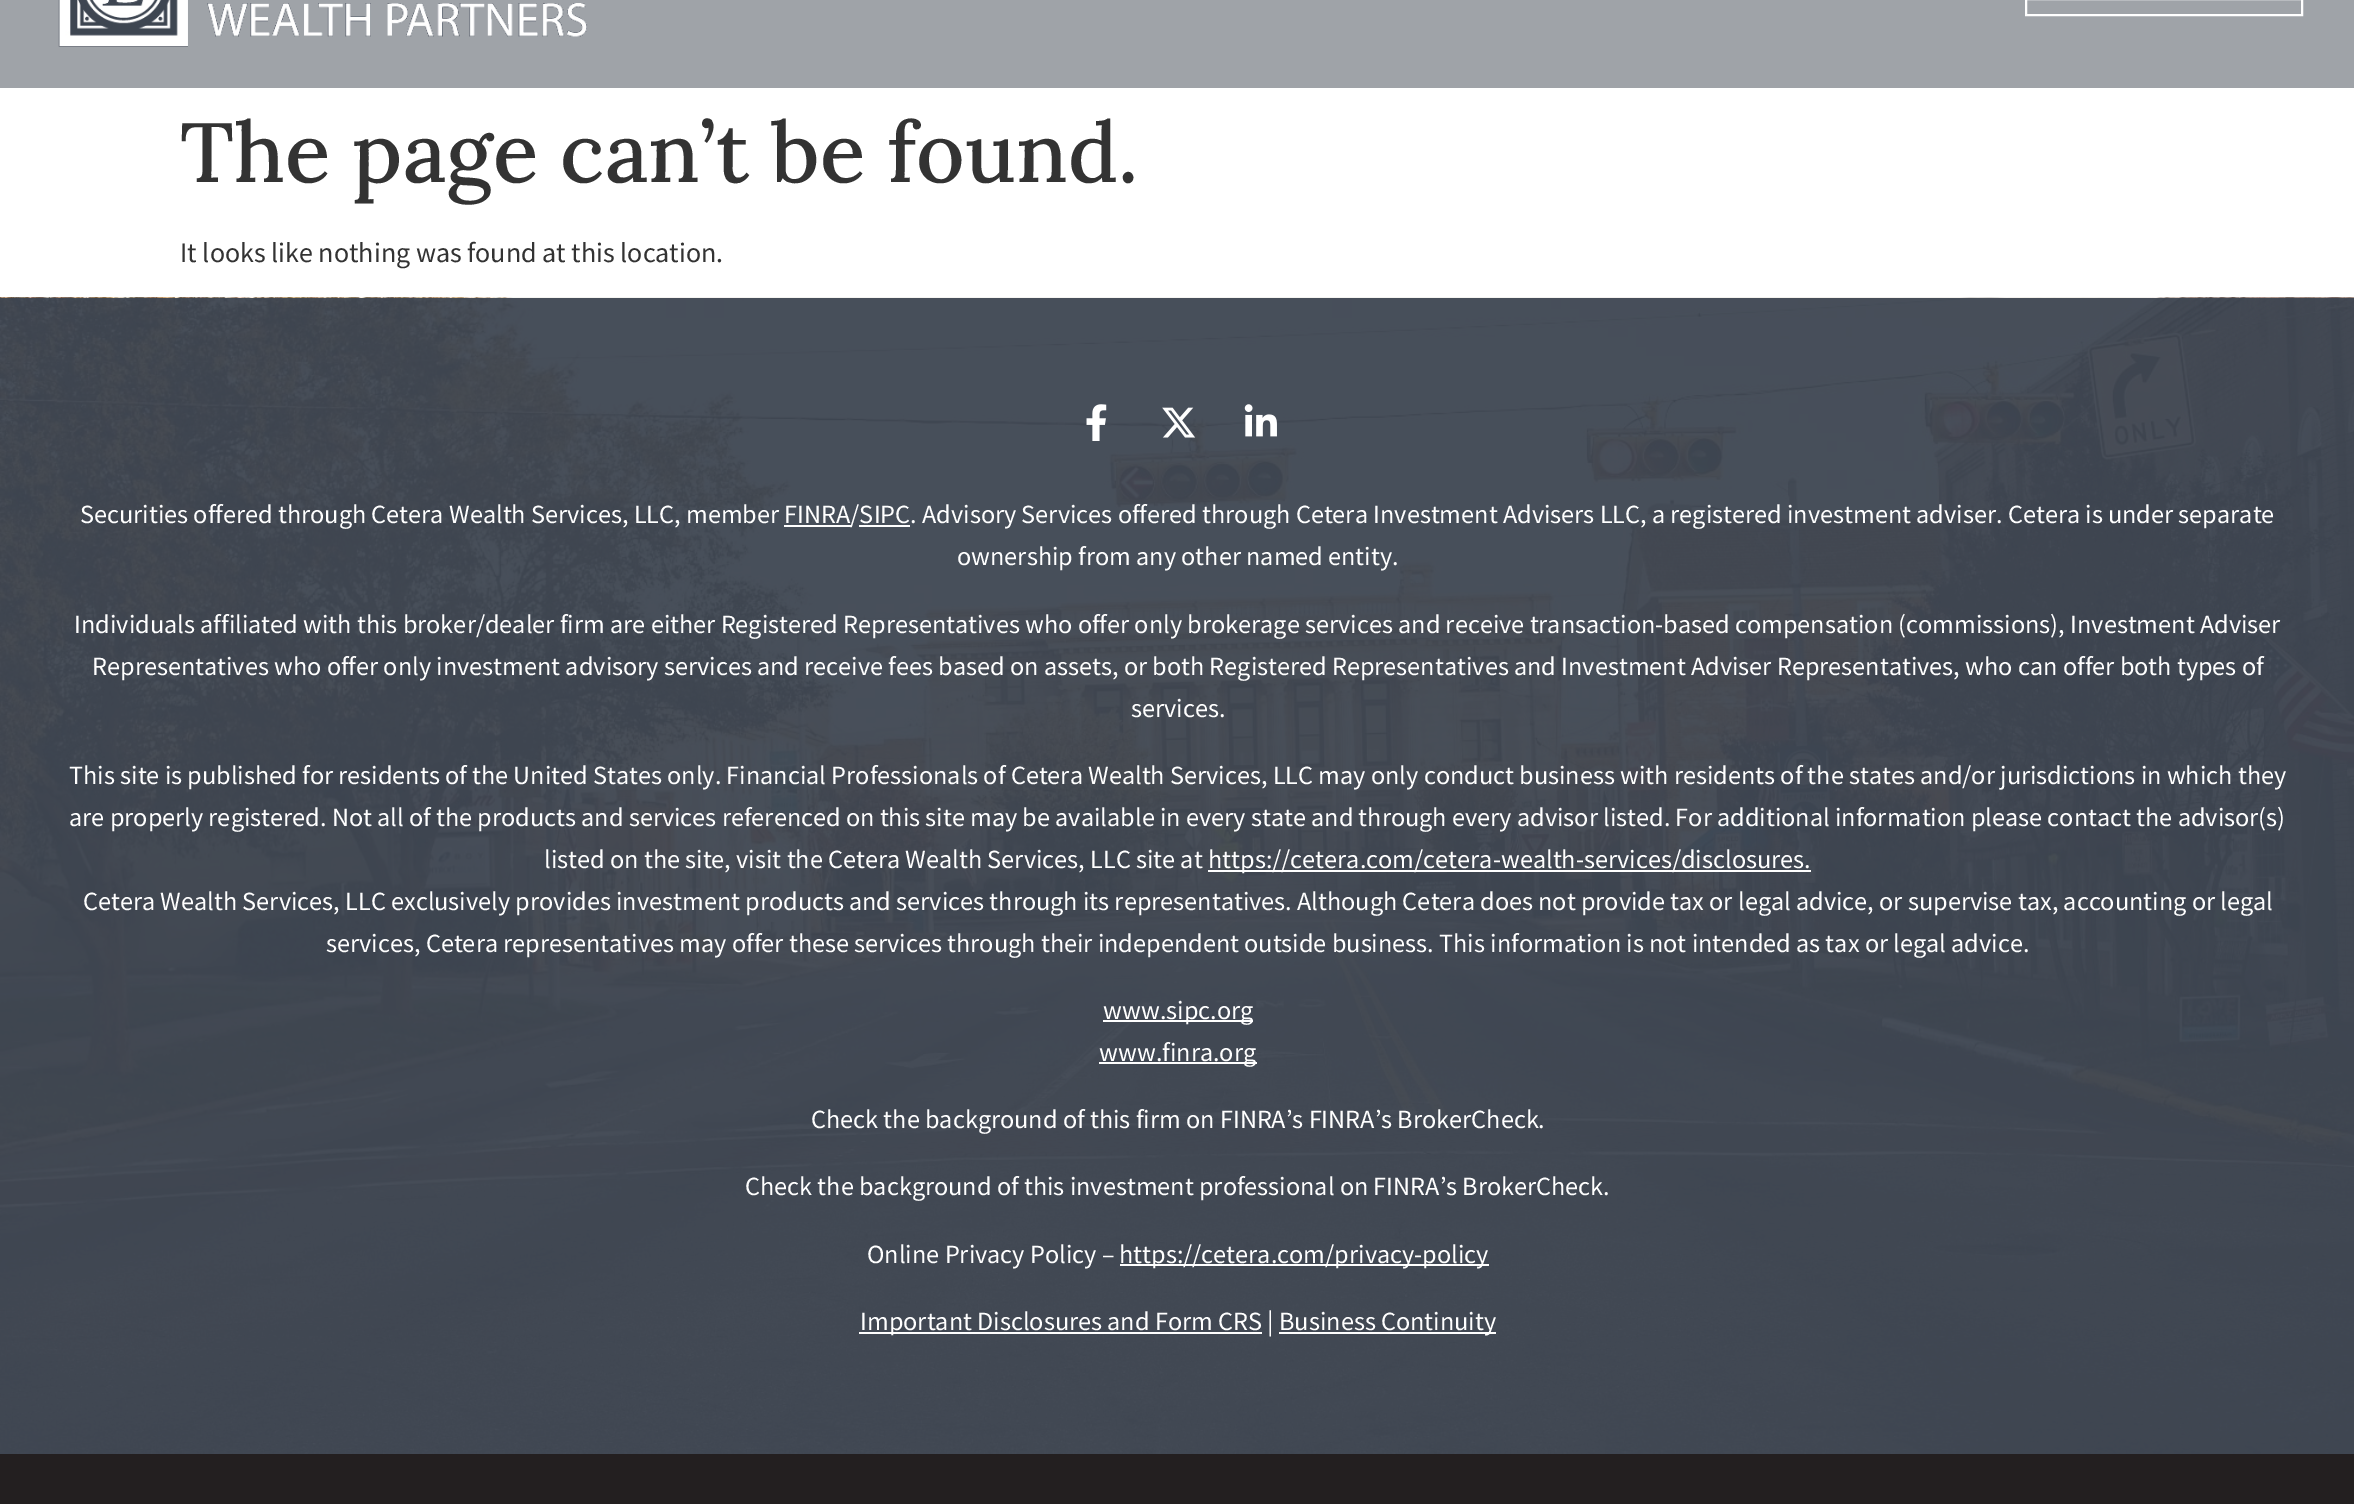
%!PS-Adobe-3.0
%%BoundingBox: 0 0 2354 1504
%%LanguageLevel: 3
%%Pages: 1
%%EndComments
%%BeginProlog
/setink { dup -16 bitshift 255 div exch dup -8 bitshift 255 and 255 div exch 255 and 255 div setrgbcolor } def
/usefont { [ exch dup neg 0 0 3 -1 roll 0 0 ] selectfont } def
/drawimage { 5 dict begin { /h /w /y /x /name } { exch def } forall
  gsave x y translate w h scale
  w h 8 [w 0 0 h 0 0] name (r) file false 3 colorimage grestore end } def
%%EndProlog
%%BeginSetup
<< /PageSize [2354 1504] >> setpagedevice
%%EndSetup
%%Page: 1 1
0 1504 translate 1 -1 scale
4 setmiterlimit
16#FFFFFF setink
0 0 2354 1504 rectfill
16#9FA3A8 setink
0 0 2354 88 rectfill
(img1.raw) 58 0 530 47 drawimage
16#FFFFFF setink
2 setlinewidth
2026 -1 276 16 rectstroke
/Lora-Medium 84 usefont
16#333333 setink
180 182 moveto (The page can’t be found.) show
/SourceSansPro-Regular 28 usefont
180 262 moveto (It looks like nothing was found at this location.) show
(img2.raw) 0 297 2354 1157 drawimage
(img3.raw) 1086 404 21 37 drawimage
(img4.raw) 1162 407 34 31 drawimage
(img5.raw) 1244 404 33 33 drawimage
/SourceSansPro-Regular 26.25 usefont
16#FFFFFF setink
80 523 moveto (Securities offered through Cetera Wealth Services, LLC, member FINRA/SIPC. Advisory Services offered through Cetera Investment Advisers LLC, a registered investment adviser. Cetera is under separate) show
784 525 67 2 rectfill
859 525 51 2 rectfill
[
    [(ownership from any other named entity.) 957 565]
    [(Individuals affiliated with this broker/dealer firm are either Registered Representatives who offer only brokerage services and receive transaction-based compensation \(commissions\), Investment Adviser) 74 633]
    [(Representatives who offer only investment advisory services and receive fees based on assets, or both Registered Representatives and Investment Adviser Representatives, who can offer both types of) 92 675]
    [(services.) 1131 717]
    [(This site is published for residents of the United States only. Financial Professionals of Cetera Wealth Services, LLC may only conduct business with residents of the states and/or jurisdictions in which they) 69 784]
    [(are properly registered. Not all of the products and services referenced on this site may be available in every state and through every advisor listed. For additional information please contact the advisor\(s\)) 69 826]
    [(listed on the site, visit the Cetera Wealth Services, LLC site at) 544 868]
] { aload pop moveto show } forall
1208 870 603 2 rectfill
[
    [(https://cetera.com/cetera-wealth-services/disclosures.) 1208 868]
    [(Cetera Wealth Services, LLC exclusively provides investment products and services through its representatives. Although Cetera does not provide tax or legal advice, or supervise tax, accounting or legal) 83 910]
    [(services, Cetera representatives may offer these services through their independent outside business. This information is not intended as tax or legal advice.) 326 952]
] { aload pop moveto show } forall
1103 1020 150 2 rectfill
1103 1019 moveto (www.sipc.org) show
1099 1062 158 2 rectfill
[
    [(www.finra.org) 1099 1061]
    [(Check the background of this firm on FINRA’s FINRA’s BrokerCheck.) 811 1128]
    [(Check the background of this investment professional on FINRA’s BrokerCheck.) 745 1195]
    [(Online Privacy Policy –) 867 1263]
] { aload pop moveto show } forall
1120 1264 369 2 rectfill
1119 1263 moveto (https://cetera.com/privacy-policy) show
859 1332 403 2 rectfill
860 1330 moveto (Important Disclosures and Form CRS |) show
1279 1332 217 2 rectfill
1279 1330 moveto (Business Continuity) show
16#231F20 setink
0 1454 2354 50 rectfill
showpage
%%EOF
